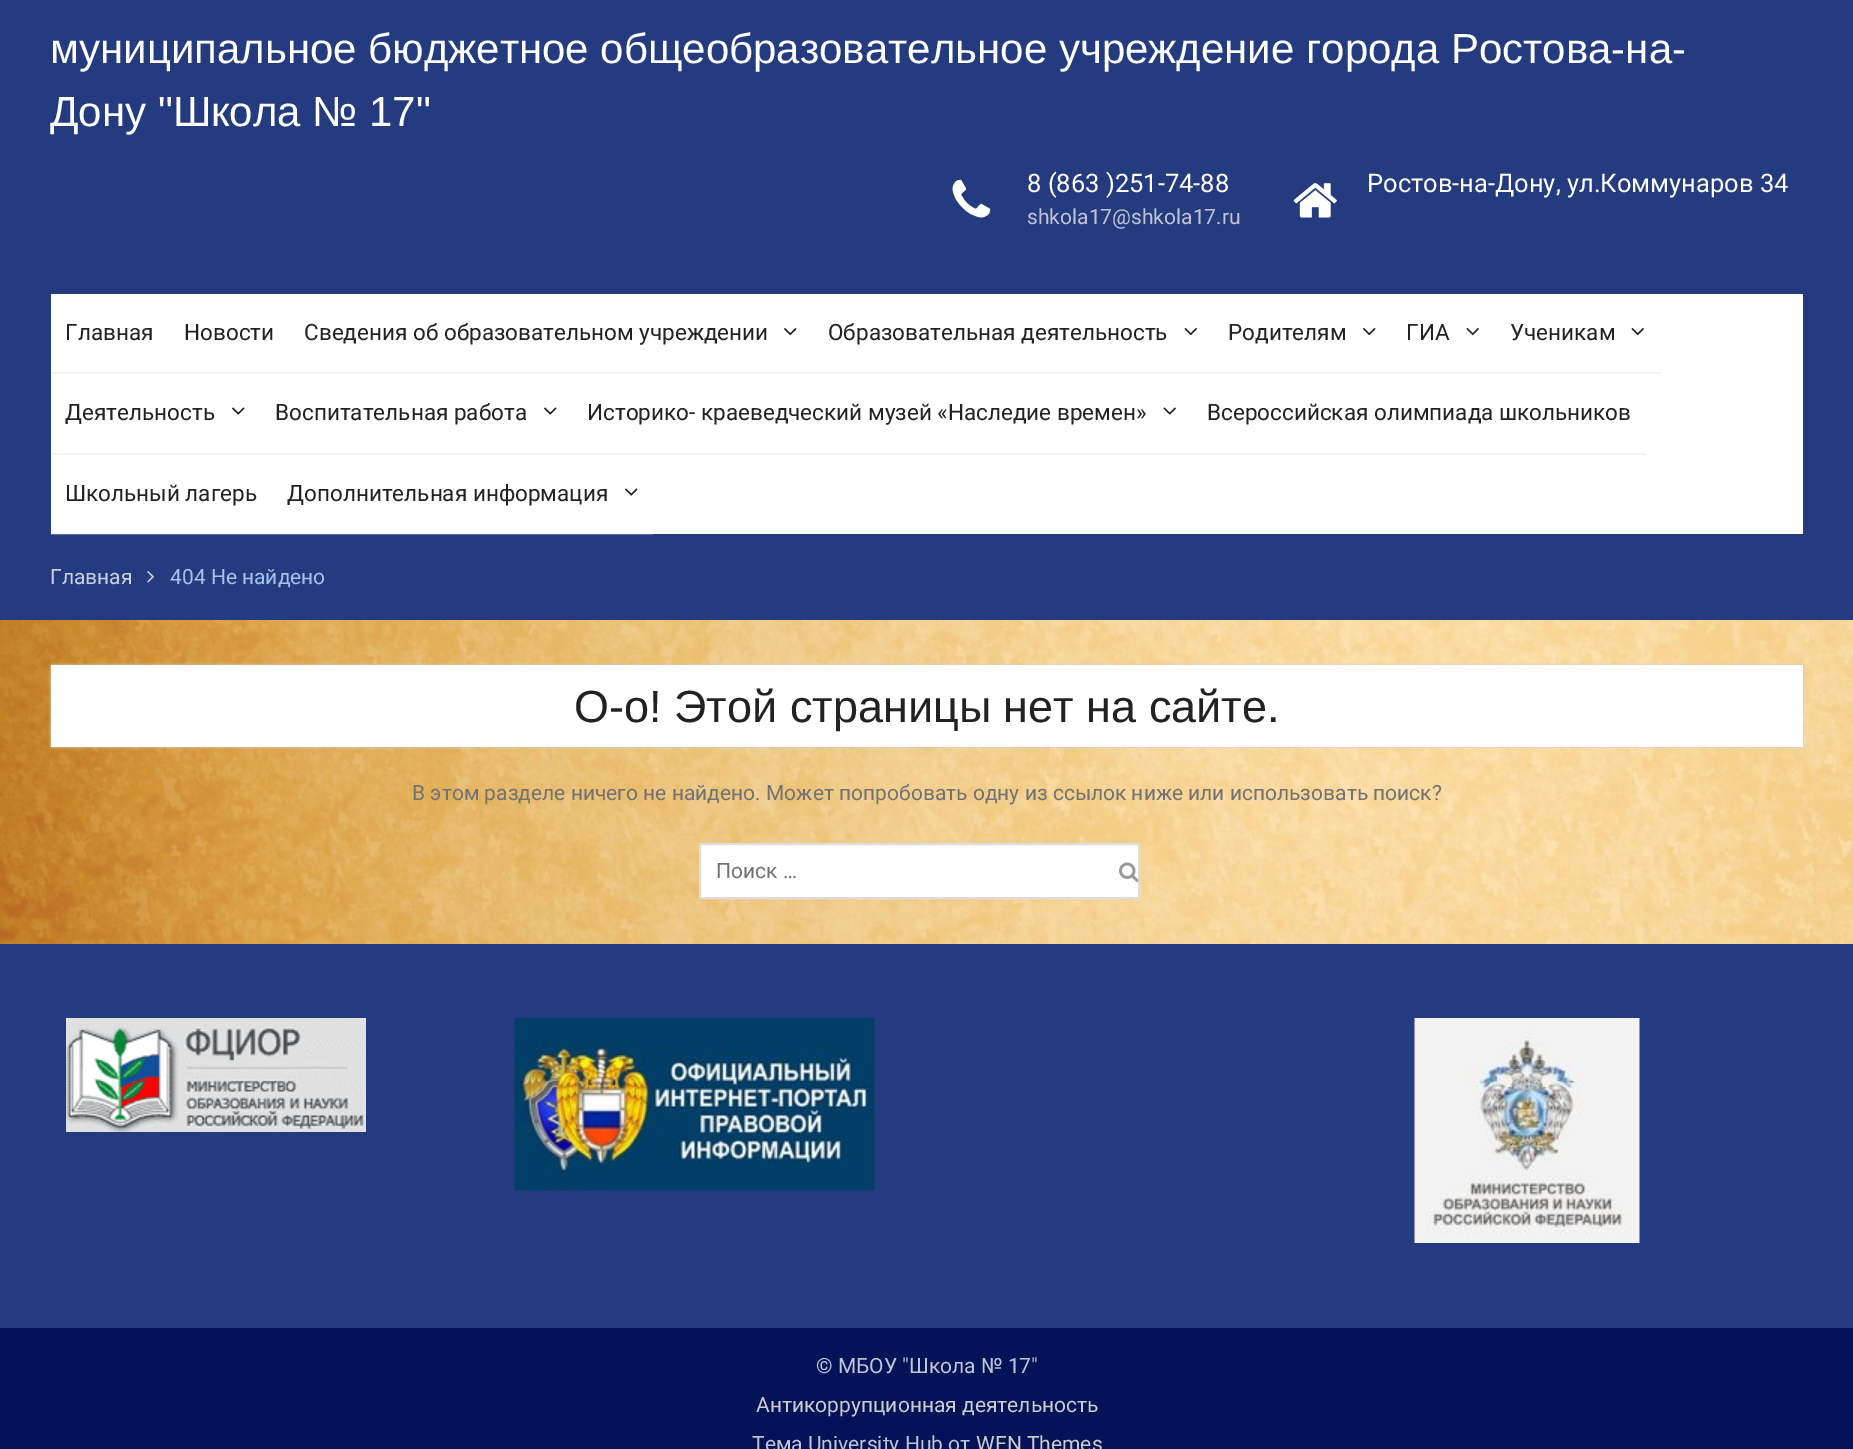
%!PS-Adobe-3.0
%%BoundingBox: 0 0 1853 1449
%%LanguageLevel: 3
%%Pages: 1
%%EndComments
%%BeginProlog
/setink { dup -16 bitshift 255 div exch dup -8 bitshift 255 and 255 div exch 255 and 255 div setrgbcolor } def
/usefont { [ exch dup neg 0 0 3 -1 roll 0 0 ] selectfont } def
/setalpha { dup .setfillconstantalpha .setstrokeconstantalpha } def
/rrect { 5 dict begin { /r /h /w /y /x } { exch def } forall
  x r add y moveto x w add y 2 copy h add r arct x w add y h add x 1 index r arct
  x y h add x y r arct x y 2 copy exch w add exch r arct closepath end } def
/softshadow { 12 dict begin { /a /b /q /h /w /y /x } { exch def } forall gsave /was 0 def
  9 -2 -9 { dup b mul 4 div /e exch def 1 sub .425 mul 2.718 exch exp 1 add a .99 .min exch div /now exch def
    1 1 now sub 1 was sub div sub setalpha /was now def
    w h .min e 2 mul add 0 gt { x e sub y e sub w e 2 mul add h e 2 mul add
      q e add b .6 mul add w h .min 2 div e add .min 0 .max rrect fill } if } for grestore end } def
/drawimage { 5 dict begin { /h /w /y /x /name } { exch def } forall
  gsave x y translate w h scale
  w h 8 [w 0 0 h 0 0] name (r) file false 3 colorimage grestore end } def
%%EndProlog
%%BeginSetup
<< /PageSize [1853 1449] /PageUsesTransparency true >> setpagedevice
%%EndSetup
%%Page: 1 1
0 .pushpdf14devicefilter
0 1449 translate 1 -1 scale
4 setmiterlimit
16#FFFFFF setink
0 0 1853 1449 rectfill
(img1.raw) 0 620 1853 324 drawimage
16#253B80 setink
0 0 1853 620 rectfill
/LiberationSans-Regular 42 usefont
16#FFFFFF setink
50 63 moveto (муниципальное бюджетное общеобразовательное учреждение города Ростова-на-) show
50 126 moveto (Дону "Школа № 17") show
(img2.raw) 952 179 39 39 drawimage
/Roboto-Regular 25.5 usefont
1027 192 moveto (8 \(863 \)251-74-88) show
/Roboto-Regular 21 usefont
16#C0C4D5 setink
1027 224 moveto (shkola17@shkola17.ru) show
(img3.raw) 1293 183 44 35 drawimage
/Roboto-Regular 25.5 usefont
16#FFFFFF setink
1367 192 moveto (Ростов-на-Дону, ул.Коммунаров 34) show
51 294 1752 240 rectfill
16#F3F3F3 setink
51 372 1610 2 rectfill
/Roboto-Regular 22.5 usefont
16#222222 setink
[
    [(Главная) 65 340]
    [(Новости) 184 340]
    [(Сведения об образовательном учреждении) 304 340]
] { aload pop moveto show } forall
(img4.raw) 784 328 13 8 drawimage
828 340 moveto (Образовательная деятельность) show
(img5.raw) 1184 328 13 8 drawimage
1228 340 moveto (Родителям) show
(img4.raw) 1363 328 13 8 drawimage
1406 340 moveto (ГИА) show
(img5.raw) 1466 328 13 8 drawimage
1510 340 moveto (Ученикам) show
(img5.raw) 1631 328 13 8 drawimage
16#F3F3F3 setink
51 453 1595 2 rectfill
16#222222 setink
65 420 moveto (Деятельность) show
(img6.raw) 232 407 13 8 drawimage
275 420 moveto (Воспитательная работа) show
(img6.raw) 544 407 13 8 drawimage
587 420 moveto (Историко- краеведческий музей «Наследие времен») show
(img7.raw) 1163 407 13 8 drawimage
1207 420 moveto (Всероссийская олимпиада школьников) show
0.34 setalpha
16#DDDDDD setink
51 533 221 2 rectfill
1 setalpha
16#222222 setink
65 501 moveto (Школьный лагерь) show
0.34 setalpha
16#DDDDDD setink
272 533 381 2 rectfill
1 setalpha
16#222222 setink
287 501 moveto (Дополнительная информация) show
(img6.raw) 625 488 13 8 drawimage
/Roboto-Regular 21 usefont
16#CBD0E1 setink
50 584 moveto (Главная) show
(img8.raw) 147 571 7 12 drawimage
16#A0C5E8 setink
170 584 moveto (404 Не найдено) show
16#CFCFCF setink
51 665 1752 82 0 1.5 1 softshadow
16#FFFFFF setink
51 665 1752 82 rectfill
/LiberationSans-Regular 45 usefont
16#222222 setink
574 722 moveto (О-о! Этой страницы нет на сайте.) show
/Roboto-Regular 21 usefont
16#727272 setink
412 800 moveto (В этом разделе ничего не найдено. Может попробовать одну из ссылок ниже или использовать поиск?) show
16#FFFFFF setink
700 844 moveto 1139 844 lineto 1139 898 lineto 700 898 lineto closepath gsave fill grestore
16#DDDDDD setink
2 setlinewidth
stroke
16#727272 setink
716 878 moveto (Поиск …) show
(img9.raw) 1119 862 20 20 drawimage
16#253B80 setink
0 944 1853 384 rectfill
(img10.raw) 66 1018 300 114 drawimage
(img11.raw) 514 1018 361 173 drawimage
(img12.raw) 1414 1018 226 225 drawimage
16#031358 setink
0 1328 1853 121 rectfill
16#C0C4D5 setink
816 1373 moveto (© МБОУ "Школа № 17") show
16#CCCCCC setink
756 1412 moveto (Антикоррупционная деятельность) show
16#C0C4D5 setink
752 1451 moveto (Тема University Hub от) show
16#CCCCCC setink
976 1451 moveto (WEN Themes) show
.poppdf14devicefilter showpage
%%EOF
